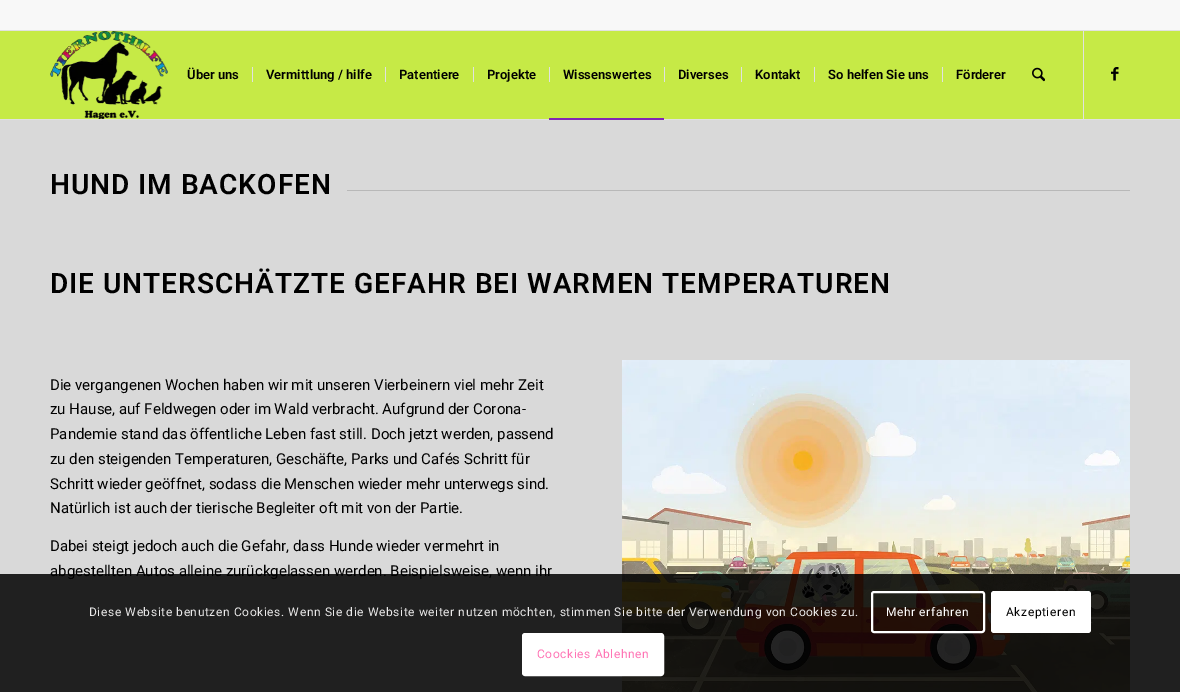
%!PS-Adobe-3.0
%%BoundingBox: 0 0 1180 692
%%LanguageLevel: 3
%%Pages: 1
%%EndComments
%%BeginProlog
/setink { dup -16 bitshift 255 div exch dup -8 bitshift 255 and 255 div exch 255 and 255 div setrgbcolor } def
/usefont { [ exch dup neg 0 0 3 -1 roll 0 0 ] selectfont } def
/setalpha { dup .setfillconstantalpha .setstrokeconstantalpha } def
/rrect { 5 dict begin { /r /h /w /y /x } { exch def } forall
  x r add y moveto x w add y 2 copy h add r arct x w add y h add x 1 index r arct
  x y h add x y r arct x y 2 copy exch w add exch r arct closepath end } def
/drawimage { 5 dict begin { /h /w /y /x /name } { exch def } forall
  gsave x y translate w h scale
  w h 8 [w 0 0 h 0 0] name (r) file false 3 colorimage grestore end } def
%%EndProlog
%%BeginSetup
<< /PageSize [1180 692] /PageUsesTransparency true >> setpagedevice
%%EndSetup
%%Page: 1 1
0 .pushpdf14devicefilter
0 692 translate 1 -1 scale
4 setmiterlimit
16#C6EA46 setink
0 0 1180 692 rectfill
[
    [0 0 1180 30 16#F8F8F8]
    [0 30 1180 1 16#E1E1E1]
    [0 119 1180 1 16#E1E1E1]
] { aload pop setink rectfill } forall
(img1.raw) 50 31 118 88 drawimage
1083 31 1 88 rectfill
/Roboto-SemiBold 13 usefont
16#000000 setink
187 79 moveto (Über uns) show
266 79 moveto (Vermittlung / hilfe) show
16#E1E1E1 setink
252 67 1 15 rectfill
16#000000 setink
399 79 moveto (Patentiere) show
16#E1E1E1 setink
385 67 1 15 rectfill
16#000000 setink
487 79 moveto (Projekte) show
16#E1E1E1 setink
473 67 1 15 rectfill
16#000000 setink
563 79 moveto (Wissenswertes) show
16#E1E1E1 setink
549 67 1 15 rectfill
16#8227B3 setink
549 118 115 2 rectfill
16#000000 setink
678 79 moveto (Diverses) show
16#E1E1E1 setink
664 67 1 15 rectfill
16#000000 setink
755 79 moveto (Kontakt) show
16#E1E1E1 setink
741 67 1 15 rectfill
16#000000 setink
828 79 moveto (So helfen Sie uns) show
16#E1E1E1 setink
814 67 1 15 rectfill
16#000000 setink
956 79 moveto (Förderer) show
16#E1E1E1 setink
942 67 1 15 rectfill
(img2.raw) 1032 67 13 15 drawimage
(img3.raw) 1111 67 8 14 drawimage
16#D9D9D9 setink
0 120 1180 572 rectfill
/Roboto-SemiBold 28 usefont
16#000000 setink
50 194 moveto 1 0 (HUND IM BACKOFEN) ashow
16#B8B8B8 setink
347 190 783 1 rectfill
16#000000 setink
50 293 moveto 1 0 (DIE UNTERSCHÄTZTE GEFAHR BEI WARMEN TEMPERATUREN) ashow
/Roboto-Regular 15 usefont
[
    [(Die vergangenen Wochen haben wir mit unseren Vierbeinern viel mehr Zeit) 50 390]
    [(zu Hause, auf Feldwegen oder im Wald verbracht. Aufgrund der Corona-) 50 414]
    [(Pandemie stand das öffentliche Leben fast still. Doch jetzt werden, passend) 50 439]
    [(zu den steigenden Temperaturen, Geschäfte, Parks und Cafés Schritt für) 50 464]
    [(Schritt wieder geöffnet, sodass die Menschen wieder mehr unterwegs sind.) 50 489]
    [(Natürlich ist auch der tierische Begleiter oft mit von der Partie.) 50 513]
    [(Dabei steigt jedoch auch die Gefahr, dass Hunde wieder vermehrt in) 50 551]
    [(abgestellten Autos alleine zurückgelassen werden. Beispielsweise, wenn ihr) 50 576]
] { aload pop moveto show } forall
(img4.raw) 622 360 508 332 drawimage
0.85 setalpha
0 574 1180 118 rectfill
/Roboto-Regular 12 usefont
1 setalpha
16#E9E8E8 setink
89 616 moveto 0.6 0 (Diese Website benutzen Cookies. Wenn Sie die Website weiter nutzen möchten, stimmen Sie bitte der Verwendung von Cookies zu.) ashow
16#FFFFFF setink
2 setlinewidth
872 592 112 40 2 rrect stroke
886 616 moveto 0.6 0 (Mehr erfahren) ashow
991 591 100 42 3 rrect fill
16#000000 setink
1006 616 moveto 0.6 0 (Akzeptieren) ashow
16#FFFFFF setink
523 634 140 41 2 rrect gsave fill grestore
stroke
16#FF75B5 setink
537 658 moveto 0.6 0 (Coockies Ablehnen) ashow
.poppdf14devicefilter showpage
%%EOF
